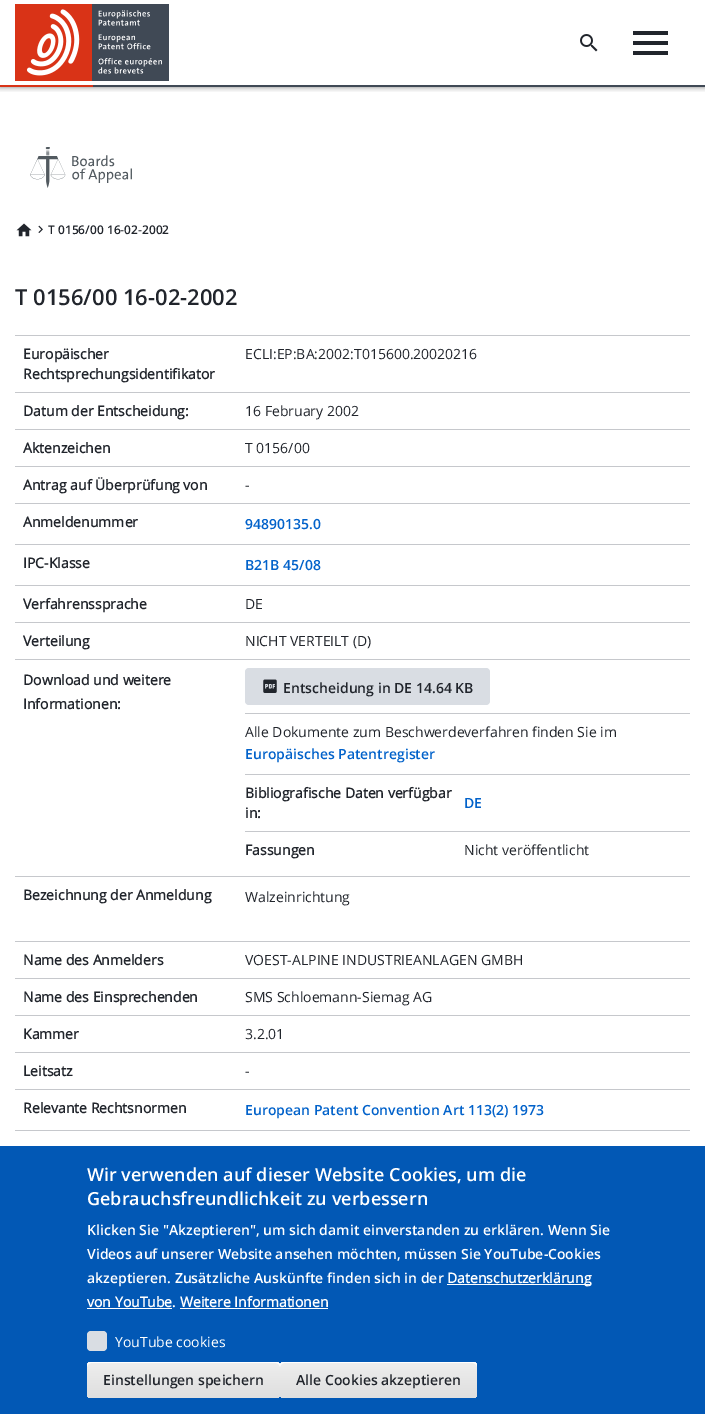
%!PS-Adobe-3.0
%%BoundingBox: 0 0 705 1414
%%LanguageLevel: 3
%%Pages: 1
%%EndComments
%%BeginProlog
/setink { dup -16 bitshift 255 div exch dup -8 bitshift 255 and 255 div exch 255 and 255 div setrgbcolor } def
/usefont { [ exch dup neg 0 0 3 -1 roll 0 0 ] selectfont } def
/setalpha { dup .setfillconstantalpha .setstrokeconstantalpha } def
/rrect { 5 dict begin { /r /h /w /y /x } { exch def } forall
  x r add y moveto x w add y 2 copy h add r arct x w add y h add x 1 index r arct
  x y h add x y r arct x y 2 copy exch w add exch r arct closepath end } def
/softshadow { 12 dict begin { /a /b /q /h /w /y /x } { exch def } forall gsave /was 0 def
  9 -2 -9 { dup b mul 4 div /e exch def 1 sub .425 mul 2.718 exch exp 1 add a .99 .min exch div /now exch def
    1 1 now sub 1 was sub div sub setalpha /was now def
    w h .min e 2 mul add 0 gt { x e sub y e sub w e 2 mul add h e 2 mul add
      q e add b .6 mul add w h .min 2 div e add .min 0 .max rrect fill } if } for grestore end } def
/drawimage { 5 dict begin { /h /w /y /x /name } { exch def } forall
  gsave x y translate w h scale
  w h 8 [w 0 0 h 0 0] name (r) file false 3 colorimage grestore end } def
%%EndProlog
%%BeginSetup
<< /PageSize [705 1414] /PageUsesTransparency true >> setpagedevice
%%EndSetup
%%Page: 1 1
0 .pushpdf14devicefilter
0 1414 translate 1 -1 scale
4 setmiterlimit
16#FFFFFF setink
0 0 705 1414 rectfill
gsave
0 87 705 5 rectclip
16#000000 setink
0 0 705 87 0 3 0.5 softshadow
grestore
16#404955 setink
93 85 612 2 rectfill
(img1.raw) 15 4 77 77 drawimage
(img2.raw) 92 4 77 77 drawimage
16#D93317 setink
0 85 93 2 rectfill
(img3.raw) 580 34 18 18 drawimage
[
    [633 31 35 4 16#21252C]
    [633 41 35 4 16#21252C]
    [633 51 35 4 16#21252C]
] { aload pop setink rectfill } forall
(img4.raw) 30 147 102 41 drawimage
(img5.raw) 16 223 16 14 drawimage
(img6.raw) 38 225 5 8 drawimage
/OpenSans-SemiBold 12 usefont
48 234 moveto (T 0156/00 16-02-2002) show
/OpenSans-SemiBold 22 usefont
15 305 moveto (T 0156/00 16-02-2002) show
16#C6C8CC setink
15 335 675 1 rectfill
/OpenSans-Bold 14 usefont
16#21252C setink
23 359 moveto (Europäischer) show
23 379 moveto (Rechtsprechungsidentifikator) show
/OpenSans-Regular 14 usefont
245 359 moveto (ECLI:EP:BA:2002:T015600.20020216) show
16#C6C8CC setink
15 392 675 1 rectfill
/OpenSans-Bold 14 usefont
16#21252C setink
23 416 moveto (Datum der Entscheidung:) show
/OpenSans-Regular 14 usefont
245 416 moveto (16 February 2002) show
16#C6C8CC setink
15 429 675 1 rectfill
/OpenSans-Bold 14 usefont
16#21252C setink
23 453 moveto (Aktenzeichen) show
/OpenSans-Regular 14 usefont
245 453 moveto (T 0156/00) show
16#C6C8CC setink
15 466 675 1 rectfill
/OpenSans-Bold 14 usefont
16#21252C setink
23 490 moveto (Antrag auf Überprüfung von) show
/OpenSans-Regular 14 usefont
245 490 moveto (-) show
16#C6C8CC setink
15 503 675 1 rectfill
/OpenSans-Bold 14 usefont
16#21252C setink
23 527 moveto (Anmeldenummer) show
/OpenSans-SemiBold 14 usefont
16#0262CA setink
245 529 moveto (94890135.0) show
16#C6C8CC setink
15 544 675 1 rectfill
/OpenSans-Bold 14 usefont
16#21252C setink
23 568 moveto (IPC-Klasse) show
/OpenSans-SemiBold 14 usefont
16#0262CA setink
245 570 moveto (B21B 45/08) show
16#C6C8CC setink
15 585 675 1 rectfill
/OpenSans-Bold 14 usefont
16#21252C setink
23 609 moveto (Verfahrenssprache) show
/OpenSans-Regular 14 usefont
245 609 moveto (DE) show
16#C6C8CC setink
15 622 675 1 rectfill
/OpenSans-Bold 14 usefont
16#21252C setink
23 646 moveto (Verteilung) show
/OpenSans-Regular 14 usefont
245 646 moveto (NICHT VERTEILT \(D\)) show
16#C6C8CC setink
15 659 675 1 rectfill
/OpenSans-Bold 14 usefont
16#21252C setink
23 685 moveto (Download und weitere) show
23 709 moveto (Informationen:) show
16#D9DDE3 setink
245 668 245 37 4 rrect fill
(img7.raw) 263 679 14 14 drawimage
/OpenSans-SemiBold 14 usefont
16#21252C setink
283 693 moveto (Entscheidung in DE 14.64 KB) show
16#C6C8CC setink
245 713 445 1 rectfill
/OpenSans-Regular 14 usefont
16#21252C setink
245 737 moveto (Alle Dokumente zum Beschwerdeverfahren finden Sie im) show
/OpenSans-SemiBold 14 usefont
16#0262CA setink
245 759 moveto (Europäisches Patentregister) show
16#C6C8CC setink
245 774 445 1 rectfill
/OpenSans-Bold 14 usefont
16#21252C setink
245 798 moveto (Bibliografische Daten verfügbar) show
245 818 moveto (in:) show
/OpenSans-SemiBold 14 usefont
16#0262CA setink
464 808 moveto (DE) show
16#C6C8CC setink
245 831 445 1 rectfill
/OpenSans-Bold 14 usefont
16#21252C setink
245 855 moveto (Fassungen) show
/OpenSans-Regular 14 usefont
464 855 moveto (Nicht veröffentlicht) show
16#C6C8CC setink
15 876 675 1 rectfill
/OpenSans-Bold 14 usefont
16#21252C setink
23 900 moveto (Bezeichnung der Anmeldung) show
/OpenSans-Regular 14 usefont
245 902 moveto (Walzeinrichtung) show
16#C6C8CC setink
15 941 675 1 rectfill
/OpenSans-Bold 14 usefont
16#21252C setink
23 965 moveto (Name des Anmelders) show
/OpenSans-Regular 14 usefont
245 965 moveto (VOEST-ALPINE INDUSTRIEANLAGEN GMBH) show
16#C6C8CC setink
15 978 675 1 rectfill
/OpenSans-Bold 14 usefont
16#21252C setink
23 1002 moveto (Name des Einsprechenden) show
/OpenSans-Regular 14 usefont
245 1002 moveto (SMS Schloemann-Siemag AG) show
16#C6C8CC setink
15 1015 675 1 rectfill
/OpenSans-Bold 14 usefont
16#21252C setink
23 1039 moveto (Kammer) show
/OpenSans-Regular 14 usefont
245 1039 moveto (3.2.01) show
16#C6C8CC setink
15 1052 675 1 rectfill
/OpenSans-Bold 14 usefont
16#21252C setink
23 1076 moveto (Leitsatz) show
/OpenSans-Regular 14 usefont
245 1076 moveto (-) show
16#C6C8CC setink
15 1089 675 1 rectfill
/OpenSans-Bold 14 usefont
16#21252C setink
23 1113 moveto (Relevante Rechtsnormen) show
/OpenSans-SemiBold 14 usefont
16#0262CA setink
245 1115 moveto (European Patent Convention Art 113\(2\) 1973) show
16#C6C8CC setink
15 1130 675 1 rectfill
16#0258B5 setink
0 1146 705 268 rectfill
/OpenSans-SemiBold 18 usefont
16#FFFFFF setink
87 1181 moveto (Wir verwenden auf dieser Website Cookies, um die) show
87 1205 moveto (Gebrauchsfreundlichkeit zu verbessern) show
/OpenSans-SemiBold 14 usefont
[
    [(Klicken Sie "Akzeptieren", um sich damit einverstanden zu erklären. Wenn Sie) 87 1235]
    [(Videos auf unserer Website ansehen möchten, müssen Sie YouTube-Cookies) 87 1259]
    [(akzeptieren. Zusätzliche Auskünfte finden sich in der) 87 1283]
] { aload pop moveto show } forall
447 1284 144 1 rectfill
/OpenSans-Bold 14 usefont
447 1283 moveto (Datenschutzerklärung) show
87 1307 moveto (von YouTube) show
/OpenSans-SemiBold 14 usefont
172 1307 moveto (.) show
87 1308 85 1 rectfill
/OpenSans-Bold 14 usefont
180 1307 moveto (Weitere Informationen) show
180 1308 148 1 rectfill
16#D9DDE3 setink
87 1331 20 20 4 rrect fill
/OpenSans-Regular 14 usefont
16#FFFFFF setink
115 1347 moveto (YouTube cookies) show
gsave 87 1362 193 36 4 rrect clip newpath
<< /ShadingType 2 /ColorSpace /DeviceRGB /Coords [184 1362 184 1398] /Extend [true true] /Function << /FunctionType 3 /Domain [0 1] /Functions [<< /FunctionType 2 /Domain [0 1] /C0 [0.929 0.929 0.929] /C1 [0.929 0.929 0.929] /N 1 >> << /FunctionType 2 /Domain [0 1] /C0 [0.929 0.929 0.929] /C1 [0.875 0.875 0.875] /N 1 >>] /Bounds [0.05] /Encode [0 1 0 1] >> >> shfill grestore
91 1363 moveto 276 1363 lineto 278 1363 280 1365 280 1367 curveto 280 1366 lineto 280 1364 278 1362 276 1362 curveto 91 1362 lineto 89 1362 87 1364 87 1366 curveto 87 1367 lineto 87 1365 89 1363 91 1363 curveto closepath fill
/OpenSans-SemiBold 14 usefont
16#21252C setink
103 1385 moveto (Einstellungen speichern) show
gsave 280 1362 197 36 4 rrect clip newpath
<< /ShadingType 2 /ColorSpace /DeviceRGB /Coords [379 1362 379 1398] /Extend [true true] /Function << /FunctionType 3 /Domain [0 1] /Functions [<< /FunctionType 2 /Domain [0 1] /C0 [0.929 0.929 0.929] /C1 [0.929 0.929 0.929] /N 1 >> << /FunctionType 2 /Domain [0 1] /C0 [0.929 0.929 0.929] /C1 [0.875 0.875 0.875] /N 1 >>] /Bounds [0.05] /Encode [0 1 0 1] >> >> shfill grestore
16#FFFFFF setink
284 1363 moveto 473 1363 lineto 475 1363 477 1365 477 1367 curveto 477 1366 lineto 477 1364 475 1362 473 1362 curveto 284 1362 lineto 282 1362 280 1364 280 1366 curveto 280 1367 lineto 280 1365 282 1363 284 1363 curveto closepath fill
16#21252C setink
296 1385 moveto (Alle Cookies akzeptieren) show
.poppdf14devicefilter showpage
%%EOF
